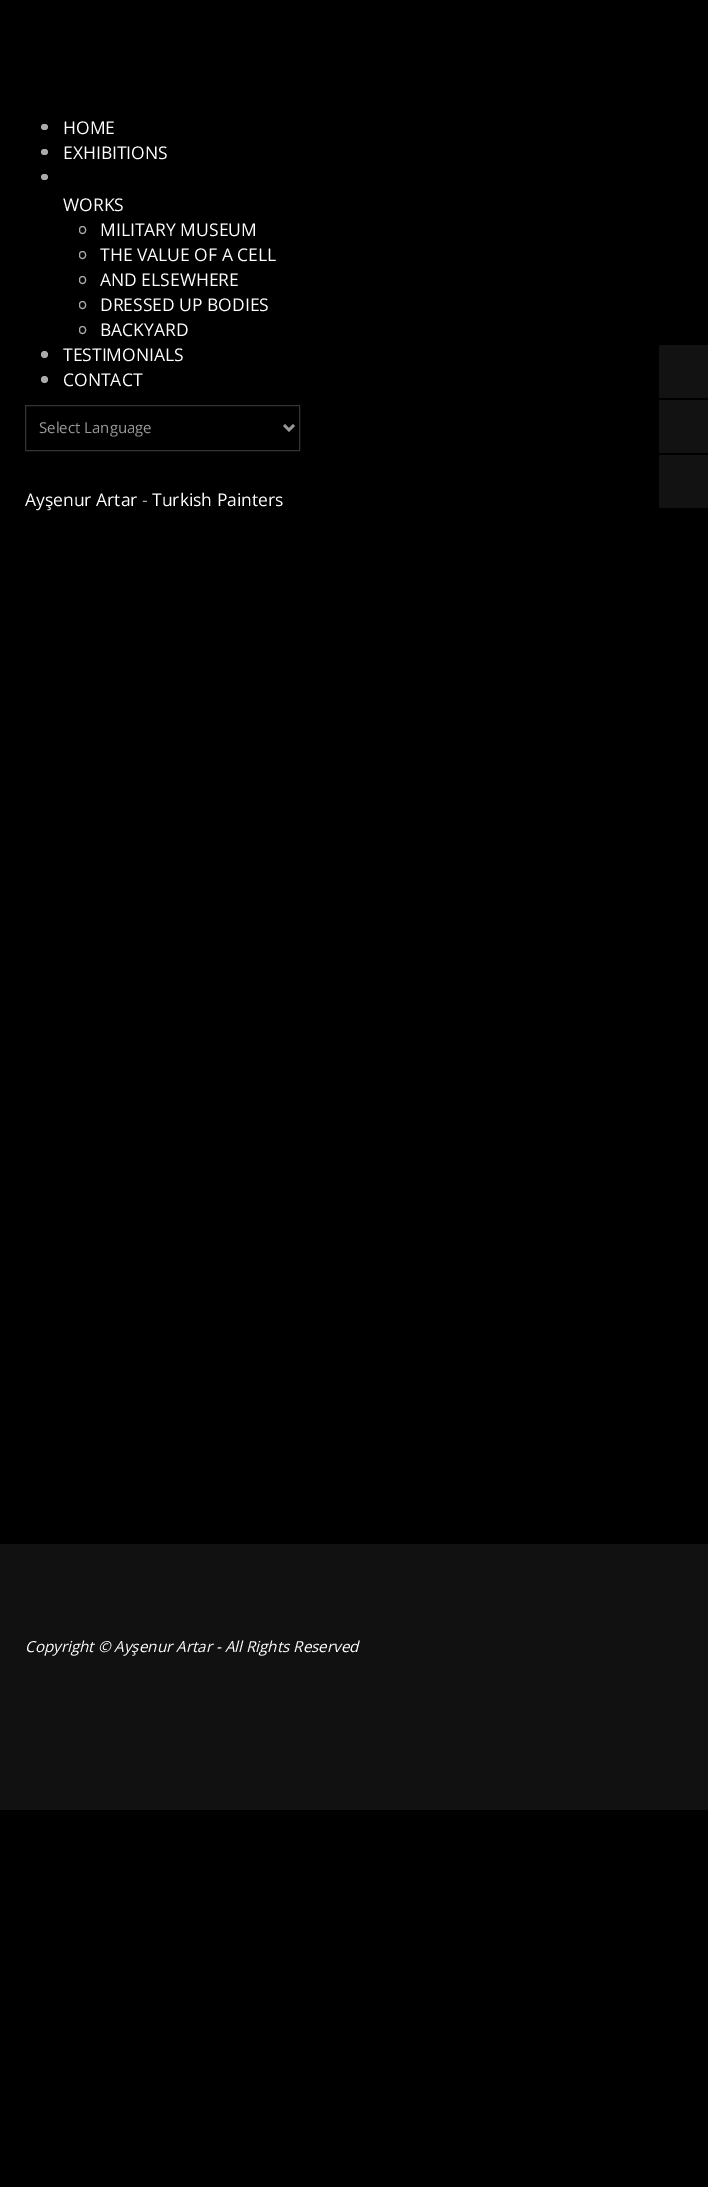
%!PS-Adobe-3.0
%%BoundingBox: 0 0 708 2187
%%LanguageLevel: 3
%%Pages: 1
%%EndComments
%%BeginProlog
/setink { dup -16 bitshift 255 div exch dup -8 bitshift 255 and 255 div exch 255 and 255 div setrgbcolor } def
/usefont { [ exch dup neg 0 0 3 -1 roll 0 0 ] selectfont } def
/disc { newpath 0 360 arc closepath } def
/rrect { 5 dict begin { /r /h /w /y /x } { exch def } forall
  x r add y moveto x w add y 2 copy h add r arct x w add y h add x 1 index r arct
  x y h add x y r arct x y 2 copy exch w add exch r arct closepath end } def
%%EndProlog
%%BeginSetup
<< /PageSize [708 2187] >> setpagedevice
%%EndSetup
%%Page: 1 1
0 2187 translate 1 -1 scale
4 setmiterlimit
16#000000 setink
0 0 708 2187 rectfill
16#AAAAAA setink
41 124 7 6 3 rrect fill
/OpenSans-Regular 17.5 usefont
16#FFFFFF setink
63 134 moveto (HOME) show
16#AAAAAA setink
41 149 7 6 3 rrect fill
16#FFFFFF setink
63 159 moveto (EXHIBITIONS) show
16#AAAAAA setink
41 174 7 6 3 rrect fill
16#FFFFFF setink
63 211 moveto (WORKS) show
16#AAAAAA setink
79.5 226.5 6 7 3 rrect stroke
16#FFFFFF setink
100 236 moveto (MILITARY MUSEUM) show
16#AAAAAA setink
79.5 251.5 6 7 3 rrect stroke
16#FFFFFF setink
100 261 moveto (THE VALUE OF A CELL) show
16#AAAAAA setink
79.5 276.5 6 7 3 rrect stroke
16#FFFFFF setink
100 286 moveto (AND ELSEWHERE) show
16#AAAAAA setink
79.5 301.5 6 7 3 rrect stroke
16#FFFFFF setink
100 311 moveto (DRESSED UP BODIES) show
16#AAAAAA setink
79.5 326.5 6 7 3 rrect stroke
16#FFFFFF setink
100 336 moveto (BACKYARD) show
16#AAAAAA setink
44.5 354.5 3.5 disc fill
16#FFFFFF setink
63 361 moveto (TESTIMONIALS) show
16#AAAAAA setink
44.5 379.5 3.5 disc fill
16#FFFFFF setink
63 386 moveto (CONTACT) show
16#333333 setink
25.5 405.5 274 45 rectstroke
16#999999 setink
2.5 setlinewidth
284 425 moveto 289 430 lineto 294 425 lineto stroke
/OpenSans-Regular 15 usefont
39 433 moveto (Select Language) show
/OpenSans-Regular 17.5 usefont
16#FFFFFF setink
25 506 moveto (Ayşenur Artar) show
16#AAAAAA setink
142 506 moveto (-) show
16#FFFFFF setink
152 506 moveto (Turkish Painters) show
[
    [659 345 49 53 16#121212]
    [659 400 49 53 16#121212]
    [659 455 49 53 16#121212]
    [0 1544 708 266 16#111111]
] { aload pop setink rectfill } forall
/OpenSans-Italic 15.2 usefont
16#FFFFFF setink
25 1652 moveto (Copyright © Ayşenur Artar - All Rights Reserved) show
showpage
%%EOF
